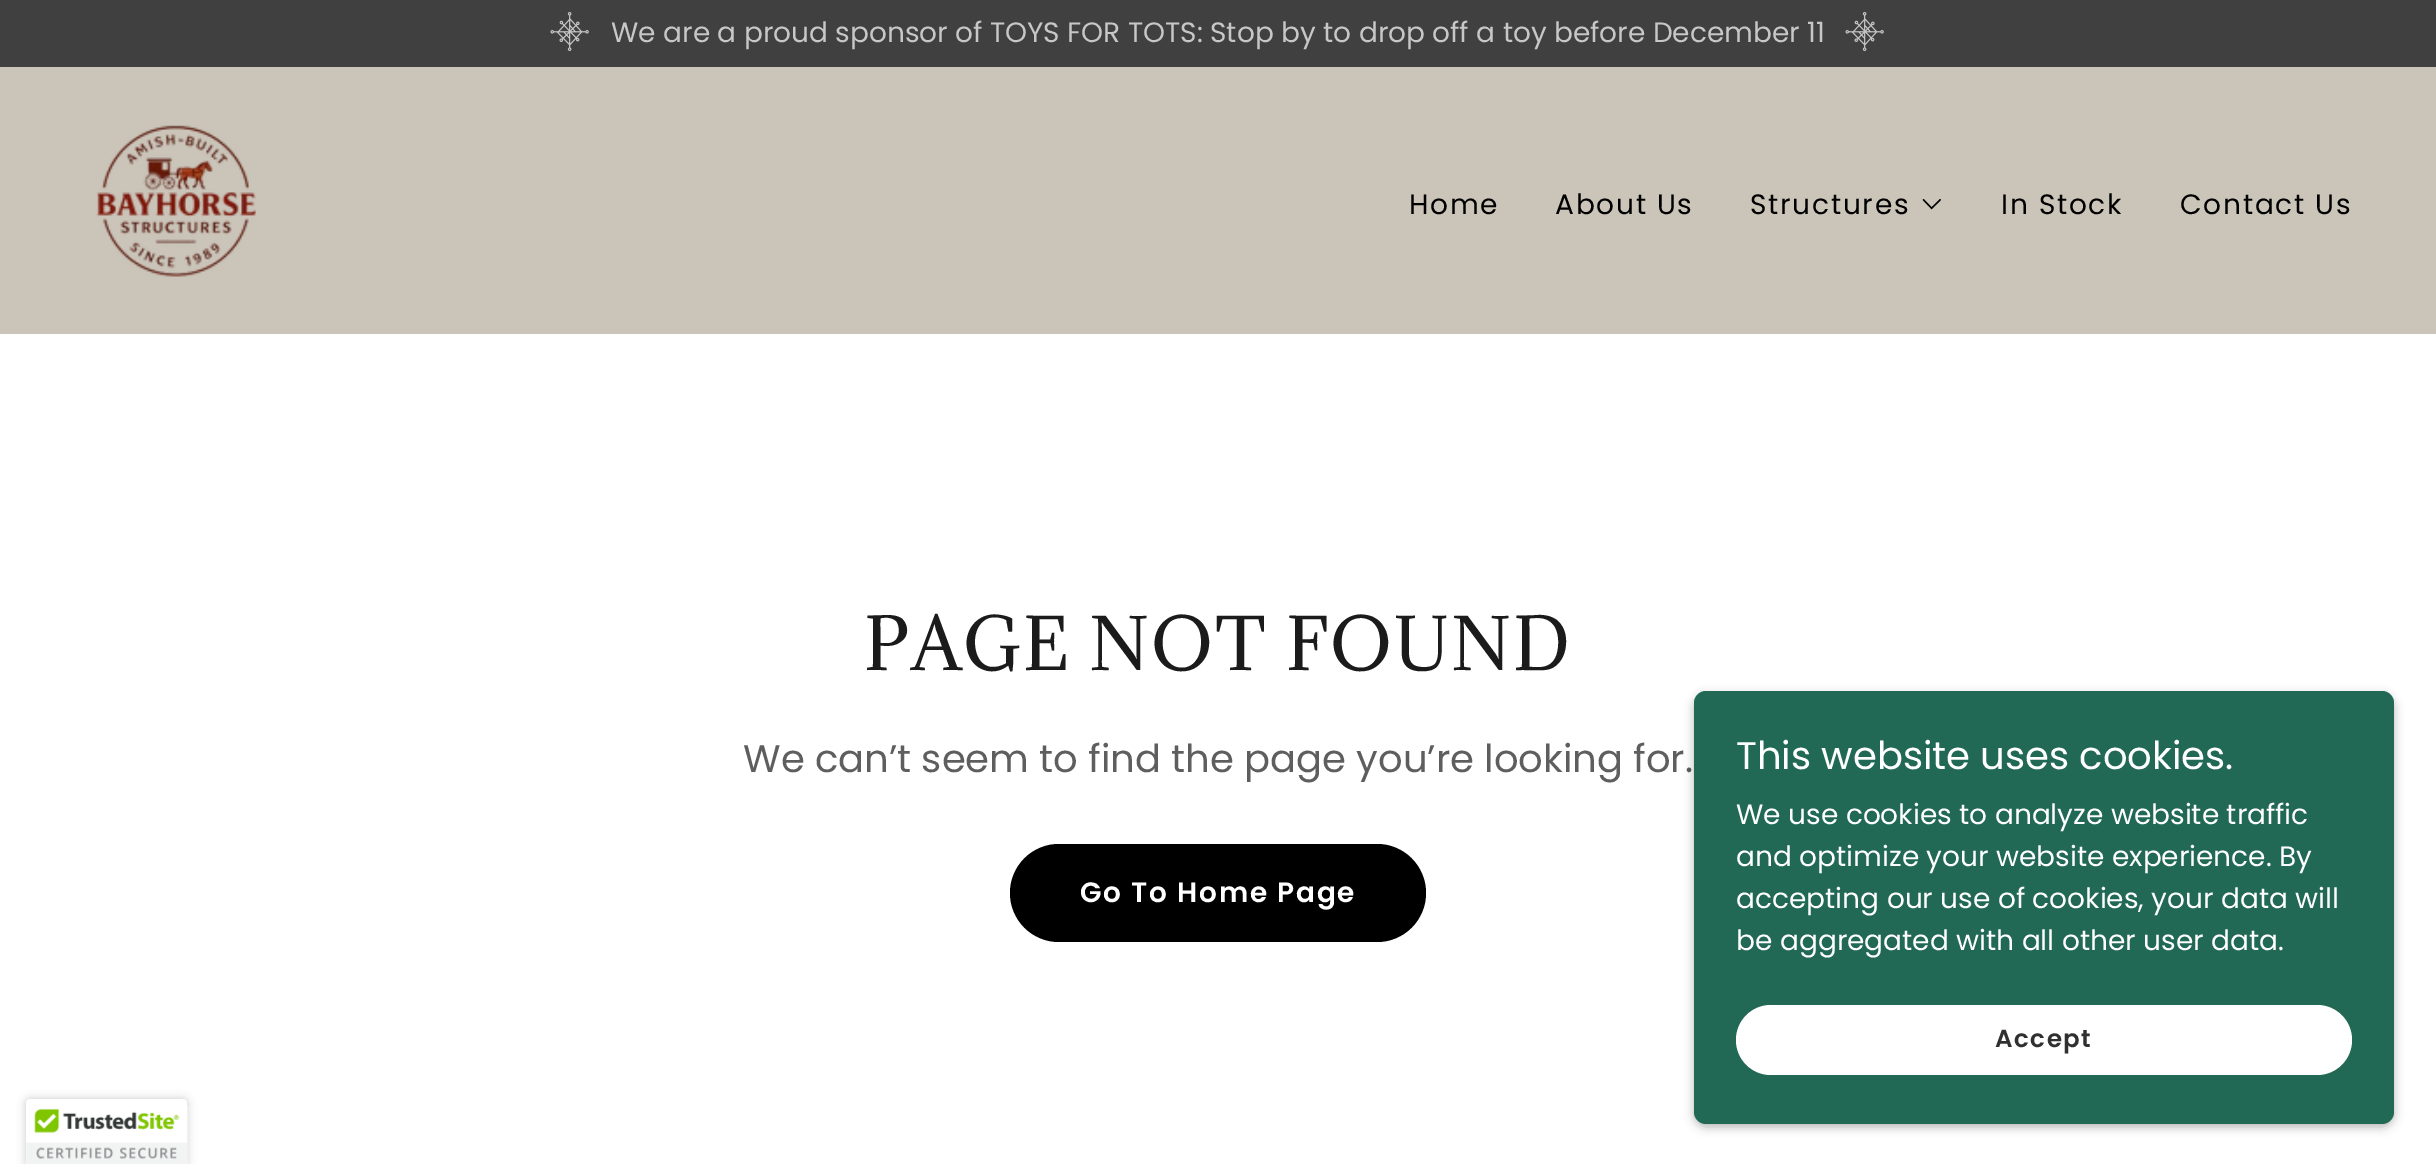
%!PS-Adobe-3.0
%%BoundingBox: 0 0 2436 1164
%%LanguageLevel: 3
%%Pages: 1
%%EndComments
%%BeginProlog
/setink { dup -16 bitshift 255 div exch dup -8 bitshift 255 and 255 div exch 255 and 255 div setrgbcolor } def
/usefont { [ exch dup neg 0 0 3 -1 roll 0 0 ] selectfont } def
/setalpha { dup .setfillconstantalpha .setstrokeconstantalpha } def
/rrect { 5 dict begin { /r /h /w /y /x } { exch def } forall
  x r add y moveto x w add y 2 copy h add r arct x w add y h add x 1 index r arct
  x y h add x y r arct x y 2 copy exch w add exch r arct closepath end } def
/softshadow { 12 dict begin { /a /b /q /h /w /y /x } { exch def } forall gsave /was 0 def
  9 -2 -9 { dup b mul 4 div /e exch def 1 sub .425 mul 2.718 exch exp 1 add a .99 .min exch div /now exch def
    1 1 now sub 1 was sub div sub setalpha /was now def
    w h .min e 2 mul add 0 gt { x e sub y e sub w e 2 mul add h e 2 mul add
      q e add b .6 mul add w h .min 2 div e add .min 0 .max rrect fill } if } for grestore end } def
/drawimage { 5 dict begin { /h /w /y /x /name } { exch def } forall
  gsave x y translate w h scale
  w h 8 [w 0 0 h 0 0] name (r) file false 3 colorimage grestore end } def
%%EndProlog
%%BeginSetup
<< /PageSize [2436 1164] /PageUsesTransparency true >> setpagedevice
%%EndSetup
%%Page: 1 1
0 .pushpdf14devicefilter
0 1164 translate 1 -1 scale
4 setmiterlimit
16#CAC4B9 setink
0 0 2436 1164 rectfill
16#404040 setink
0 0 2436 67 rectfill
(img1.raw) 550 12 39 39 drawimage
/Poppins-Regular 28 usefont
16#C7C7C7 setink
611 42 moveto (We are a proud sponsor of TOYS FOR TOTS: Stop by to drop off a toy before December 11) show
(img1.raw) 1845 12 39 39 drawimage
(img2.raw) 96 125 161 152 drawimage
16#000000 setink
1409 214 moveto 1.75 0 (Home) ashow
1555 214 moveto 1.75 0 (About Us) ashow
1750 214 moveto 1.75 0 (Structures) ashow
(img3.raw) 1922 199 19 11 drawimage
2001 214 moveto 1.75 0 (In Stock) ashow
2180 214 moveto 1.75 0 (Contact Us) ashow
16#FFFFFF setink
0 334 2436 830 rectfill
/Adamina-Regular 68.25 usefont
16#1B1B1B setink
864 670 moveto 1.75 0 (PAGE NOT FOUND) ashow
/Poppins-Regular 38.5 usefont
16#5E5E5E setink
743 772 moveto (We can’t seem to find the page you’re looking for.) show
16#000000 setink
1010 844 416 98 49 rrect fill
/Poppins-SemiBold 28 usefont
16#FFFFFF setink
1080 902 moveto 1.75 0 (Go To Home Page) ashow
16#000000 setink
1694 695 700 432 12 5 0.3 softshadow
16#216954 setink
1694 691 700 433 12 rrect fill
/Poppins-Regular 38.5 usefont
16#FFFFFF setink
1736 769 moveto (This website uses cookies.) show
/Poppins-Regular 28 usefont
[
    [(We use cookies to analyze website traffic) 1736 824]
    [(and optimize your website experience. By) 1736 866]
    [(accepting our use of cookies, your data will) 1736 908]
    [(be aggregated with all other user data.) 1736 950]
] { aload pop moveto show } forall
1736 1005 616 70 35 rrect fill
/Poppins-SemiBold 24.5 usefont
16#303030 setink
1995 1047 moveto 1.5 0 (Accept) ashow
16#000000 setink
26 1099 161 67 4 4.5 0.2 softshadow
16#FFFFFF setink
30 1099 moveto 183 1099 lineto 185 1099 187 1101 187 1103 curveto 187 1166 lineto 26 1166 lineto 26 1103 lineto 26 1101 28 1099 30 1099 curveto closepath fill
(img4.raw) 26 1106 162 58 drawimage
.poppdf14devicefilter showpage
%%EOF
